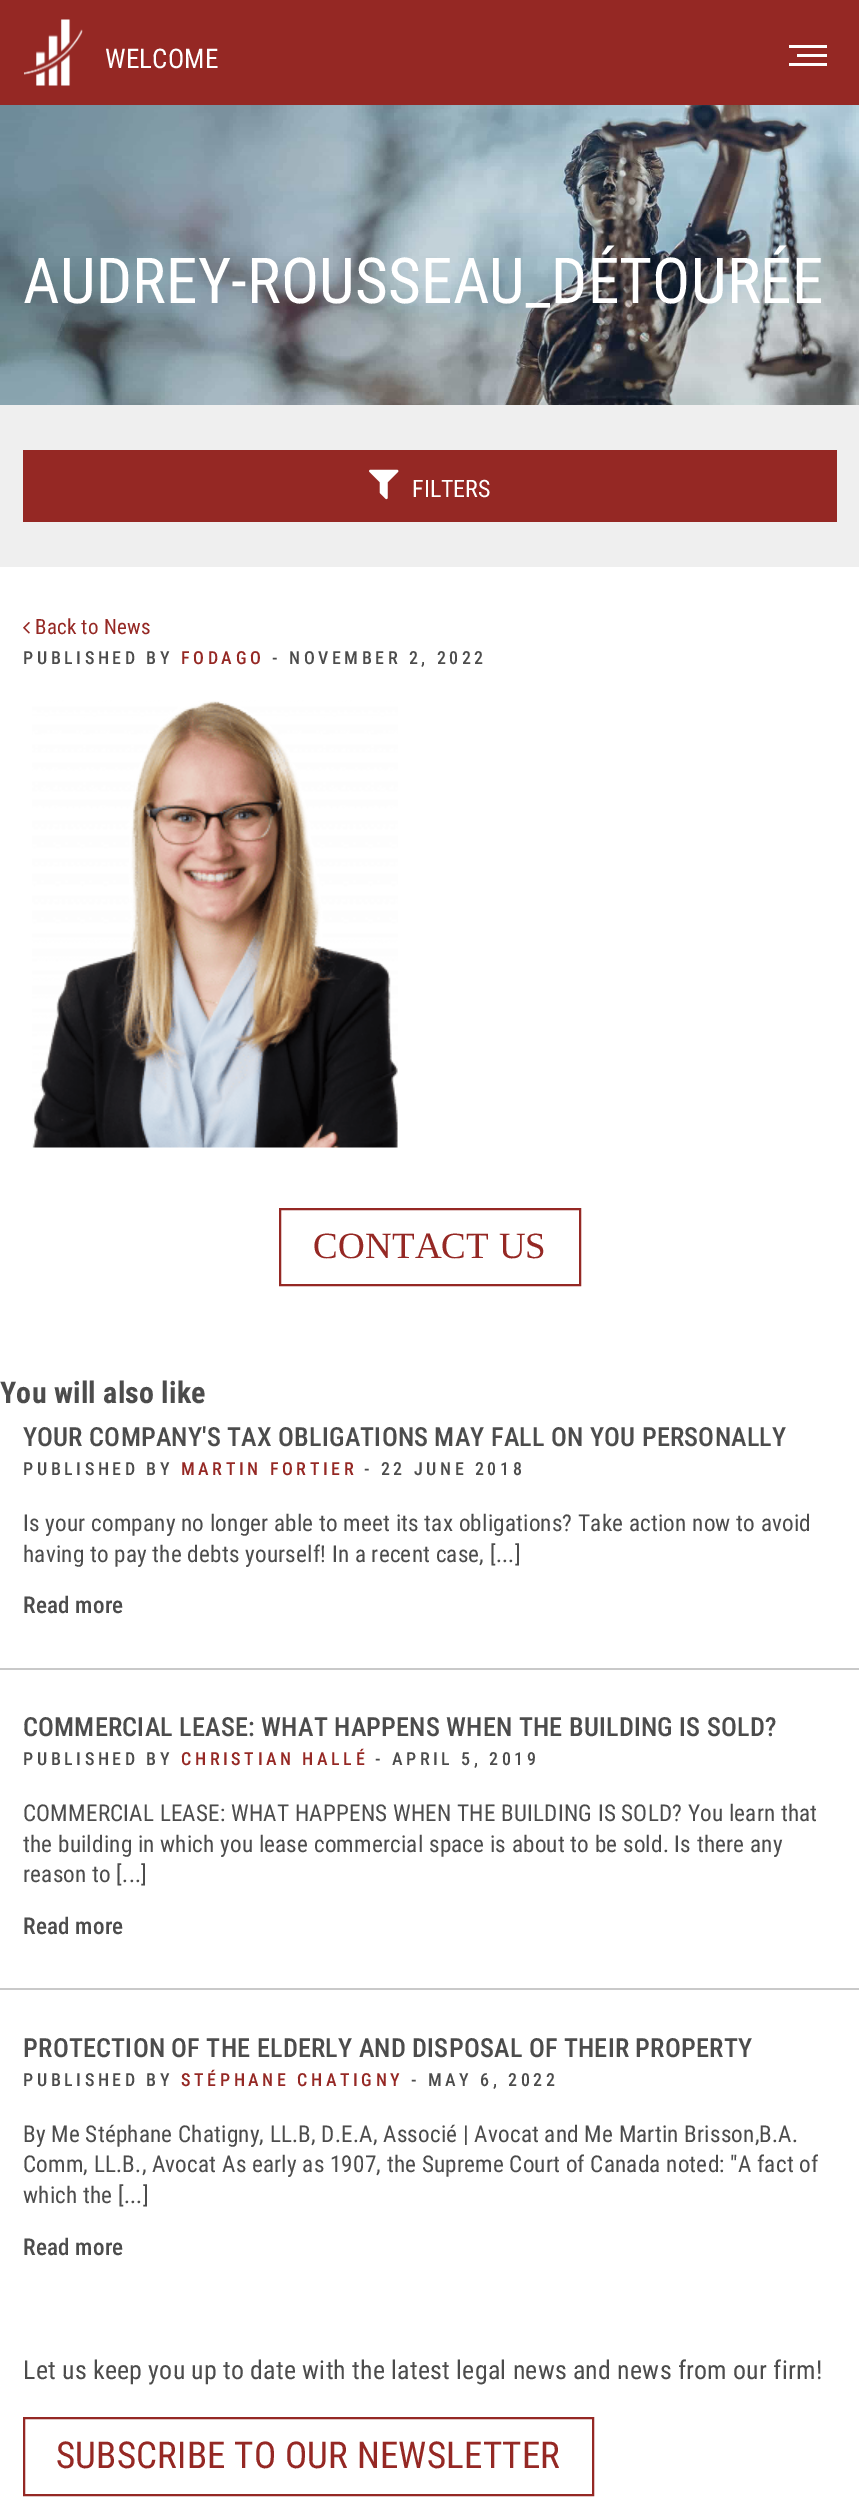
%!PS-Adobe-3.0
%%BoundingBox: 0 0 859 2498
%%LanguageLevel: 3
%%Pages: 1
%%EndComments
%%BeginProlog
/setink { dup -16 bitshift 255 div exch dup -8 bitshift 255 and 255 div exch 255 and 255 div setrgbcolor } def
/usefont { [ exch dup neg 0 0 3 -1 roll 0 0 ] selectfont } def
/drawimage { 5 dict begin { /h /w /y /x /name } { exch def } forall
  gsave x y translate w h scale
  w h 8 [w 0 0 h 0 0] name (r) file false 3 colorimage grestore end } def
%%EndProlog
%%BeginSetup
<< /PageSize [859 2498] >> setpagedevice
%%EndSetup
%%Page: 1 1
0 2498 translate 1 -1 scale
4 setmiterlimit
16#FFFFFF setink
0 0 859 2498 rectfill
16#952824 setink
0 0 859 105 rectfill
(img1.raw) 24 19 59 67 drawimage
/RobotoCondensed-Regular 27 usefont
16#FFFFFF setink
105 68 moveto 0.2 0 (WELCOME) ashow
[
    [789 45 38 3 16#FFFFFF]
    [797 54 30 3 16#FFFFFF]
    [789 63 38 3 16#FFFFFF]
] { aload pop setink rectfill } forall
(img2.raw) 0 105 859 300 drawimage
/RobotoCondensed-Regular 63.4 usefont
23 303 moveto 0.2 0 (AUDREY-ROUSSEAU_DÉTOURÉE) ashow
16#EFEFEF setink
0 405 859 162 rectfill
16#952824 setink
23 450 814 72 rectfill
(img3.raw) 369 469 30 31 drawimage
/RobotoCondensed-Regular 24 usefont
16#FFFFFF setink
412 497 moveto (FILTERS) show
(img4.raw) 23 622 7 12 drawimage
/RobotoCondensed-Regular 21 usefont
16#952824 setink
35 634 moveto 0.2 0 (Back to News) ashow
/RobotoCondensed-Medium 18 usefont
16#4C4C4C setink
23 664 moveto 3.6 0 (PUBLISHED BY) ashow
16#952824 setink
181 664 moveto 3.6 0 (FODAGO) ashow
16#4C4C4C setink
272 664 moveto 3.6 0 (- NOVEMBER 2, 2022) ashow
(img5.raw) 32 700 366 448 drawimage
16#952824 setink
2 setlinewidth
280 1209 300 76 rectstroke
/LiberationSerif-Regular 37 usefont
313 1258 moveto 0.2 0 (CONTACT US) ashow
/RobotoCondensed-Bold 30 usefont
16#4C4C4C setink
0 1403 moveto 0.2 0 (You will also like) ashow
16#C9C9C9 setink
0 1668 859 2 rectfill
/RobotoCondensed-Medium 26.35 usefont
16#4C4C4C setink
23 1446 moveto 0.2 0 (YOUR COMPANY'S TAX OBLIGATIONS MAY FALL ON YOU PERSONALLY) ashow
/RobotoCondensed-Medium 18 usefont
23 1475 moveto 3.6 0 (PUBLISHED BY) ashow
16#952824 setink
181 1475 moveto 3.6 0 (MARTIN FORTIER) ashow
16#4C4C4C setink
364 1475 moveto 3.6 0 (- 22 JUNE 2018) ashow
/RobotoCondensed-Regular 23.15 usefont
23 1531 moveto 0.2 0 (Is your company no longer able to meet its tax obligations? Take action now to avoid) ashow
23 1562 moveto 0.2 0 (having to pay the debts yourself! In a recent case, [...]) ashow
/RobotoCondensed-Medium 23.15 usefont
23 1613 moveto 0.2 0 (Read more) ashow
16#C9C9C9 setink
0 1988 859 2 rectfill
/RobotoCondensed-Medium 26.35 usefont
16#4C4C4C setink
23 1736 moveto 0.2 0 (COMMERCIAL LEASE: WHAT HAPPENS WHEN THE BUILDING IS SOLD?) ashow
/RobotoCondensed-Medium 18 usefont
23 1765 moveto 3.6 0 (PUBLISHED BY) ashow
16#952824 setink
181 1765 moveto 3.6 0 (CHRISTIAN HALLÉ) ashow
16#4C4C4C setink
375 1765 moveto 3.6 0 (- APRIL 5, 2019) ashow
/RobotoCondensed-Regular 23.15 usefont
23 1821 moveto 0.2 0 (COMMERCIAL LEASE: WHAT HAPPENS WHEN THE BUILDING IS SOLD? You learn that) ashow
23 1852 moveto 0.2 0 (the building in which you lease commercial space is about to be sold. Is there any) ashow
23 1882 moveto 0.2 0 (reason to [...]) ashow
/RobotoCondensed-Medium 23.15 usefont
23 1934 moveto 0.2 0 (Read more) ashow
/RobotoCondensed-Medium 26.35 usefont
23 2057 moveto 0.2 0 (PROTECTION OF THE ELDERLY AND DISPOSAL OF THEIR PROPERTY) ashow
/RobotoCondensed-Medium 18 usefont
23 2086 moveto 3.6 0 (PUBLISHED BY) ashow
16#952824 setink
181 2086 moveto 3.6 0 (STÉPHANE CHATIGNY) ashow
16#4C4C4C setink
411 2086 moveto 3.6 0 (- MAY 6, 2022) ashow
/RobotoCondensed-Regular 23.15 usefont
23 2142 moveto 0.2 0 (By Me Stéphane Chatigny, LL.B, D.E.A, Associé | Avocat and Me Martin Brisson,B.A.) ashow
23 2172 moveto 0.2 0 (Comm, LL.B., Avocat As early as 1907, the Supreme Court of Canada noted: "A fact of) ashow
23 2203 moveto 0.2 0 (which the [...]) ashow
/RobotoCondensed-Medium 23.15 usefont
23 2255 moveto 0.2 0 (Read more) ashow
/RobotoCondensed-Regular 25.9 usefont
23 2379 moveto 0.2 0 (Let us keep you up to date with the latest legal news and news from our firm!) ashow
16#952824 setink
24 2418 569 77 rectstroke
/RobotoCondensed-Regular 37 usefont
56 2468 moveto 0.2 0 (SUBSCRIBE TO OUR NEWSLETTER) ashow
showpage
%%EOF
